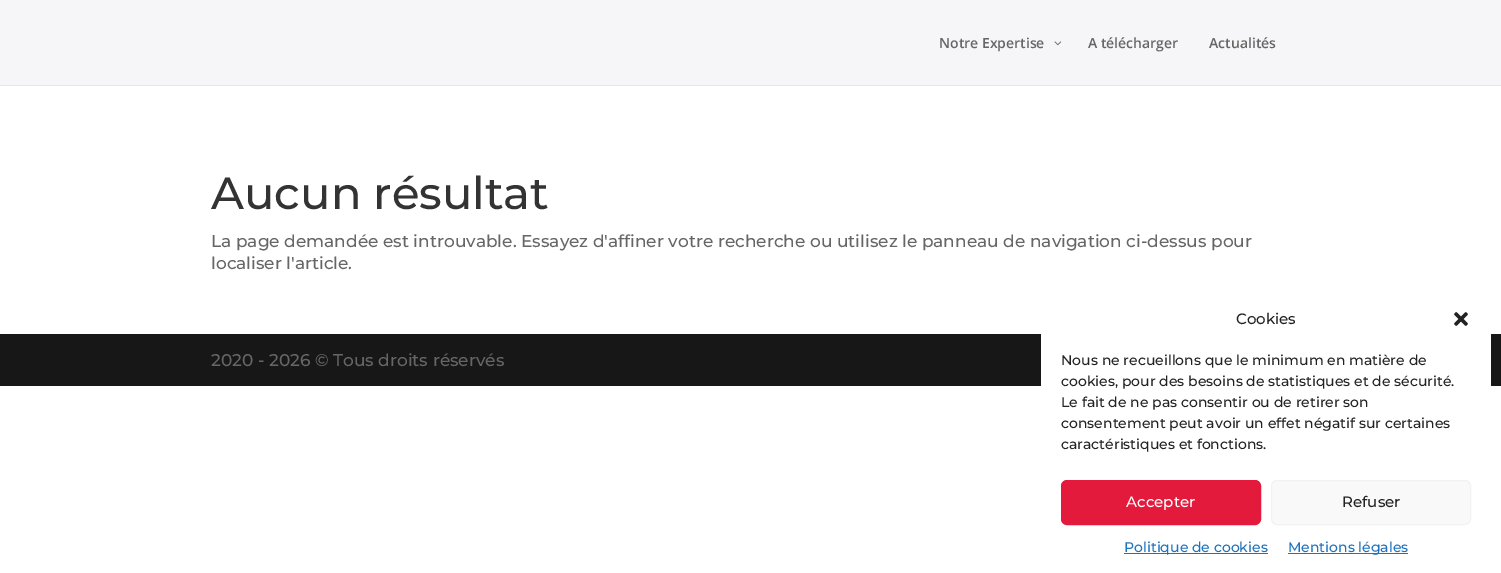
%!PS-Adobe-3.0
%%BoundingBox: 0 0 1501 573
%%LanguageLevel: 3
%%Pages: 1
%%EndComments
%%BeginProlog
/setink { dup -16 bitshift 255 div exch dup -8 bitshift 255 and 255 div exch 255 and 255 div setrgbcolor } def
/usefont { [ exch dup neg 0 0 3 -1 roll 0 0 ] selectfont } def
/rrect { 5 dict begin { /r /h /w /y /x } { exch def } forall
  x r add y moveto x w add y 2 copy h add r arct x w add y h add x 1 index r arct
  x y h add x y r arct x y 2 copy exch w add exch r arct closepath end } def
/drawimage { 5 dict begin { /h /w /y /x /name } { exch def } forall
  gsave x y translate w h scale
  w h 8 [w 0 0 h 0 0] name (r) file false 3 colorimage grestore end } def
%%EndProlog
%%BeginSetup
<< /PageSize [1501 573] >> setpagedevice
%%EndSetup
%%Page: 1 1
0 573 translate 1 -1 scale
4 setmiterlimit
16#FFFFFF setink
0 0 1501 573 rectfill
16#E6E6E6 setink
0 85 1501 1 rectfill
16#F6F6F8 setink
0 0 1501 85 rectfill
/OpenSans-SemiBold 14 usefont
16#666666 setink
939 48 moveto (Notre Expertise) show
(img1.raw) 1054 41 8 5 drawimage
1088 48 moveto (A télécharger) show
1209 48 moveto (Actualités) show
/Montserrat-Medium 45 usefont
16#333333 setink
211 209 moveto (Aucun résultat) show
/Montserrat-Medium 17 usefont
16#666666 setink
211 247 moveto (La page demandée est introuvable. Essayez d'affiner votre recherche ou utilisez le panneau de navigation ci-dessus pour) show
211 269 moveto (localiser l'article.) show
16#171717 setink
0 334 1501 52 rectfill
16#666666 setink
211 366 moveto (2020 - 2026 © Tous droits réservés) show
16#FFFFFF setink
1041 293 450 280 12 rrect fill
/Montserrat-Medium 15 usefont
16#222222 setink
1236 324 moveto (Cookies) show
(img2.raw) 1454 312 14 14 drawimage
/Montserrat-Medium 14 usefont
[
    [(Nous ne recueillons que le minimum en matière de) 1061 365]
    [(cookies, pour des besoins de statistiques et de sécurité.) 1061 386]
    [(Le fait de ne pas consentir ou de retirer son) 1061 407]
    [(consentement peut avoir un effet négatif sur certaines) 1061 428]
    [(caractéristiques et fonctions.) 1061 449]
] { aload pop moveto show } forall
16#E31A3C setink
1061.5 480.5 199 44 5.5 rrect gsave fill grestore
stroke
/Montserrat-Medium 15 usefont
16#FFFFFF setink
1126 507 moveto (Accepter) show
16#F9F9F9 setink
1271.5 480.5 199 44 5.5 rrect gsave fill grestore
16#F2F2F2 setink
stroke
16#222222 setink
1342 507 moveto (Refuser) show
16#1E73BE setink
1124 553 144 1 rectfill
/Montserrat-Medium 14 usefont
1124 552 moveto (Politique de cookies) show
1288 553 120 1 rectfill
1288 552 moveto (Mentions légales) show
showpage
%%EOF
